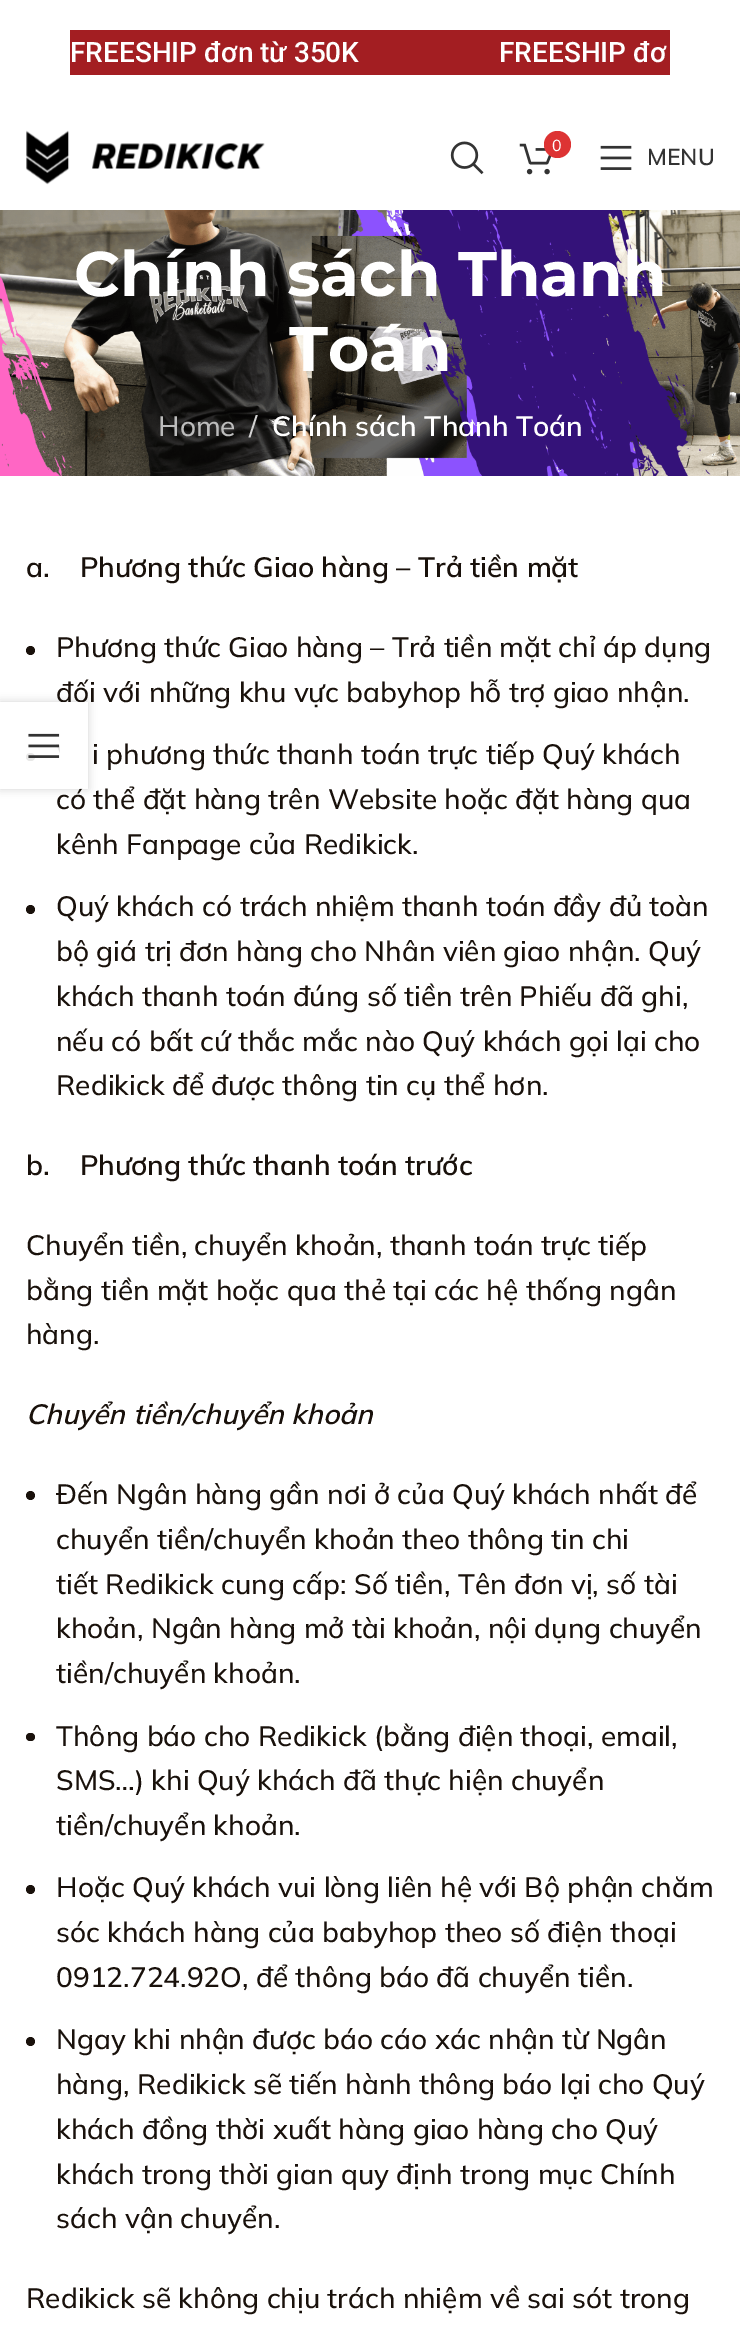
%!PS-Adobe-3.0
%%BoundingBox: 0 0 740 2337
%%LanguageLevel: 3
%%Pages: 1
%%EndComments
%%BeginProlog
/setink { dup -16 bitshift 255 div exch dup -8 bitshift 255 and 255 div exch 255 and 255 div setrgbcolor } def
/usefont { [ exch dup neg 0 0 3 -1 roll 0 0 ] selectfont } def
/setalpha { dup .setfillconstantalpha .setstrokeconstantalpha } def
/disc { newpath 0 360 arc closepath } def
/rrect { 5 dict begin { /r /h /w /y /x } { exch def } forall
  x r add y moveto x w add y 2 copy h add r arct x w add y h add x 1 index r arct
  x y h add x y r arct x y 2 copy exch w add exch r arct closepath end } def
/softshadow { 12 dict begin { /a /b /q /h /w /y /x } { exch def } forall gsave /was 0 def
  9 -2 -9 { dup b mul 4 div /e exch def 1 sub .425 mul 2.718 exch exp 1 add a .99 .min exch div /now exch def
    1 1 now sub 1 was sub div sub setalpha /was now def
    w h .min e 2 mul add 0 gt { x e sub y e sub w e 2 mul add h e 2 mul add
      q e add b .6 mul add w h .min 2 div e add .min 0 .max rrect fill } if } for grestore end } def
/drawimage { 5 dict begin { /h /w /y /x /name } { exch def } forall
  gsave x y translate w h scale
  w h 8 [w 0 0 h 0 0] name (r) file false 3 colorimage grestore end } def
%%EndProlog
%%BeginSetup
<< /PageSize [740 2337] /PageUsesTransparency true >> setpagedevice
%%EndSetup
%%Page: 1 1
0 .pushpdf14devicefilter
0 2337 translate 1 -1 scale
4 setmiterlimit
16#FFFFFF setink
0 0 740 2337 rectfill
16#A31E22 setink
70 30 600 45 rectfill
/Roboto-Medium 28 usefont
16#FFFFFF setink
70 62 moveto (FREESHIP đơn từ 350K) show
499 62 moveto (FREESHIP đơ) show
(img1.raw) 26 130 239 55 drawimage
(img2.raw) 450 141 34 34 drawimage
(img3.raw) 519 143 33 32 drawimage
16#DD3333 setink
557.5 144.5 13.5 disc fill
/Mulish-Regular 16 usefont
16#FFFFFF setink
552 151 moveto (0) show
(img4.raw) 600 145 32 25 drawimage
/Mulish-SemiBold 23 usefont
16#333333 setink
647 165 moveto (MENU) show
(img5.raw) 0 210 740 266 drawimage
/Montserrat-Bold 63 usefont
16#FFFFFF setink
74 296 moveto (Chính sách Thanh) show
289 371 moveto (Toán) show
/Mulish-Medium 28 usefont
16#BCBCBC setink
158 436 moveto (Home) show
16#D2D2D2 setink
249 436 moveto (/) show
/Mulish-SemiBold 28 usefont
16#FFFFFF setink
272 436 moveto (Chính sách Thanh Toán) show
16#19110B setink
26 577 moveto (a.    Phương thức Giao hàng – Trả tiền mặt) show
30.5 650.5 4.5 disc fill
/Mulish-Medium 28 usefont
56 657 moveto (Phương thức Giao hàng – Trả tiền mặt chỉ áp dụng) show
56 702 moveto (đối với những khu vực babyhop hỗ trợ giao nhận.) show
26 753 9 8 4 rrect fill
[
    [(i phương thức thanh toán trực tiếp Quý khách) 92 764]
    [(có thể đặt hàng trên Website hoặc đặt hàng qua) 56 809]
    [(kênh Fanpage của Redikick.) 56 854]
] { aload pop moveto show } forall
30.5 909.5 4.5 disc fill
[
    [(Quý khách có trách nhiệm thanh toán đầy đủ toàn) 56 916]
    [(bộ giá trị đơn hàng cho Nhân viên giao nhận. Quý) 56 961]
    [(khách thanh toán đúng số tiền trên Phiếu đã ghi,) 56 1006]
    [(nếu có bất cứ thắc mắc nào Quý khách gọi lại cho) 56 1051]
    [(Redikick để được thông tin cụ thể hơn.) 56 1095]
] { aload pop moveto show } forall
/Mulish-SemiBold 28 usefont
26 1175 moveto (b.    Phương thức thanh toán trước) show
/Mulish-Medium 28 usefont
[
    [(Chuyển tiền, chuyển khoản, thanh toán trực tiếp) 26 1255]
    [(bằng tiền mặt hoặc qua thẻ tại các hệ thống ngân) 26 1300]
    [(hàng.) 26 1344]
] { aload pop moveto show } forall
/Mulish-SemiBoldItalic 28 usefont
26 1424 moveto (Chuyển tiền/chuyển khoản) show
30.5 1495.5 4.5 disc fill
/Mulish-Medium 28 usefont
[
    [(Đến Ngân hàng gần nơi ở của Quý khách nhất để) 56 1504]
    [(chuyển tiền/chuyển khoản theo thông tin chi) 56 1549]
    [(tiết Redikick cung cấp: Số tiền, Tên đơn vị, số tài) 56 1594]
    [(khoản, Ngân hàng mở tài khoản, nội dụng chuyển) 56 1638]
    [(tiền/chuyển khoản.) 56 1683]
] { aload pop moveto show } forall
26 1733 9 8 4 rrect fill
[
    [(Thông báo cho Redikick \(bằng điện thoại, email,) 56 1746]
    [(SMS…\) khi Quý khách đã thực hiện chuyển) 56 1790]
    [(tiền/chuyển khoản.) 56 1835]
] { aload pop moveto show } forall
30.5 1889.5 4.5 disc fill
[
    [(Hoặc Quý khách vui lòng liên hệ với Bộ phận chăm) 56 1897]
    [(sóc khách hàng của babyhop theo số điện thoại) 56 1942]
    [(0912.724.92O, để thông báo đã chuyển tiền.) 56 1987]
] { aload pop moveto show } forall
30.5 2041.5 4.5 disc fill
[
    [(Ngay khi nhận được báo cáo xác nhận từ Ngân) 56 2049]
    [(hàng, Redikick sẽ tiến hành thông báo lại cho Quý) 56 2094]
    [(khách đồng thời xuất hàng giao hàng cho Quý) 56 2139]
    [(khách trong thời gian quy định trong mục Chính) 56 2184]
    [(sách vận chuyển.) 56 2228]
    [(Redikick sẽ không chịu trách nhiệm về sai sót trong) 26 2308]
] { aload pop moveto show } forall
gsave
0 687 moveto 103 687 lineto 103 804 lineto 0 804 lineto closepath 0 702 moveto 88 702 lineto 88 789 lineto 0 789 lineto closepath eoclip newpath
16#000000 setink
0 702 88 87 0 4.5 0.17 softshadow
grestore
0.9 setalpha
16#FFFFFF setink
26 702 62 87 rectfill
1 setalpha
(img6.raw) 28 733 32 25 drawimage
.poppdf14devicefilter showpage
%%EOF
